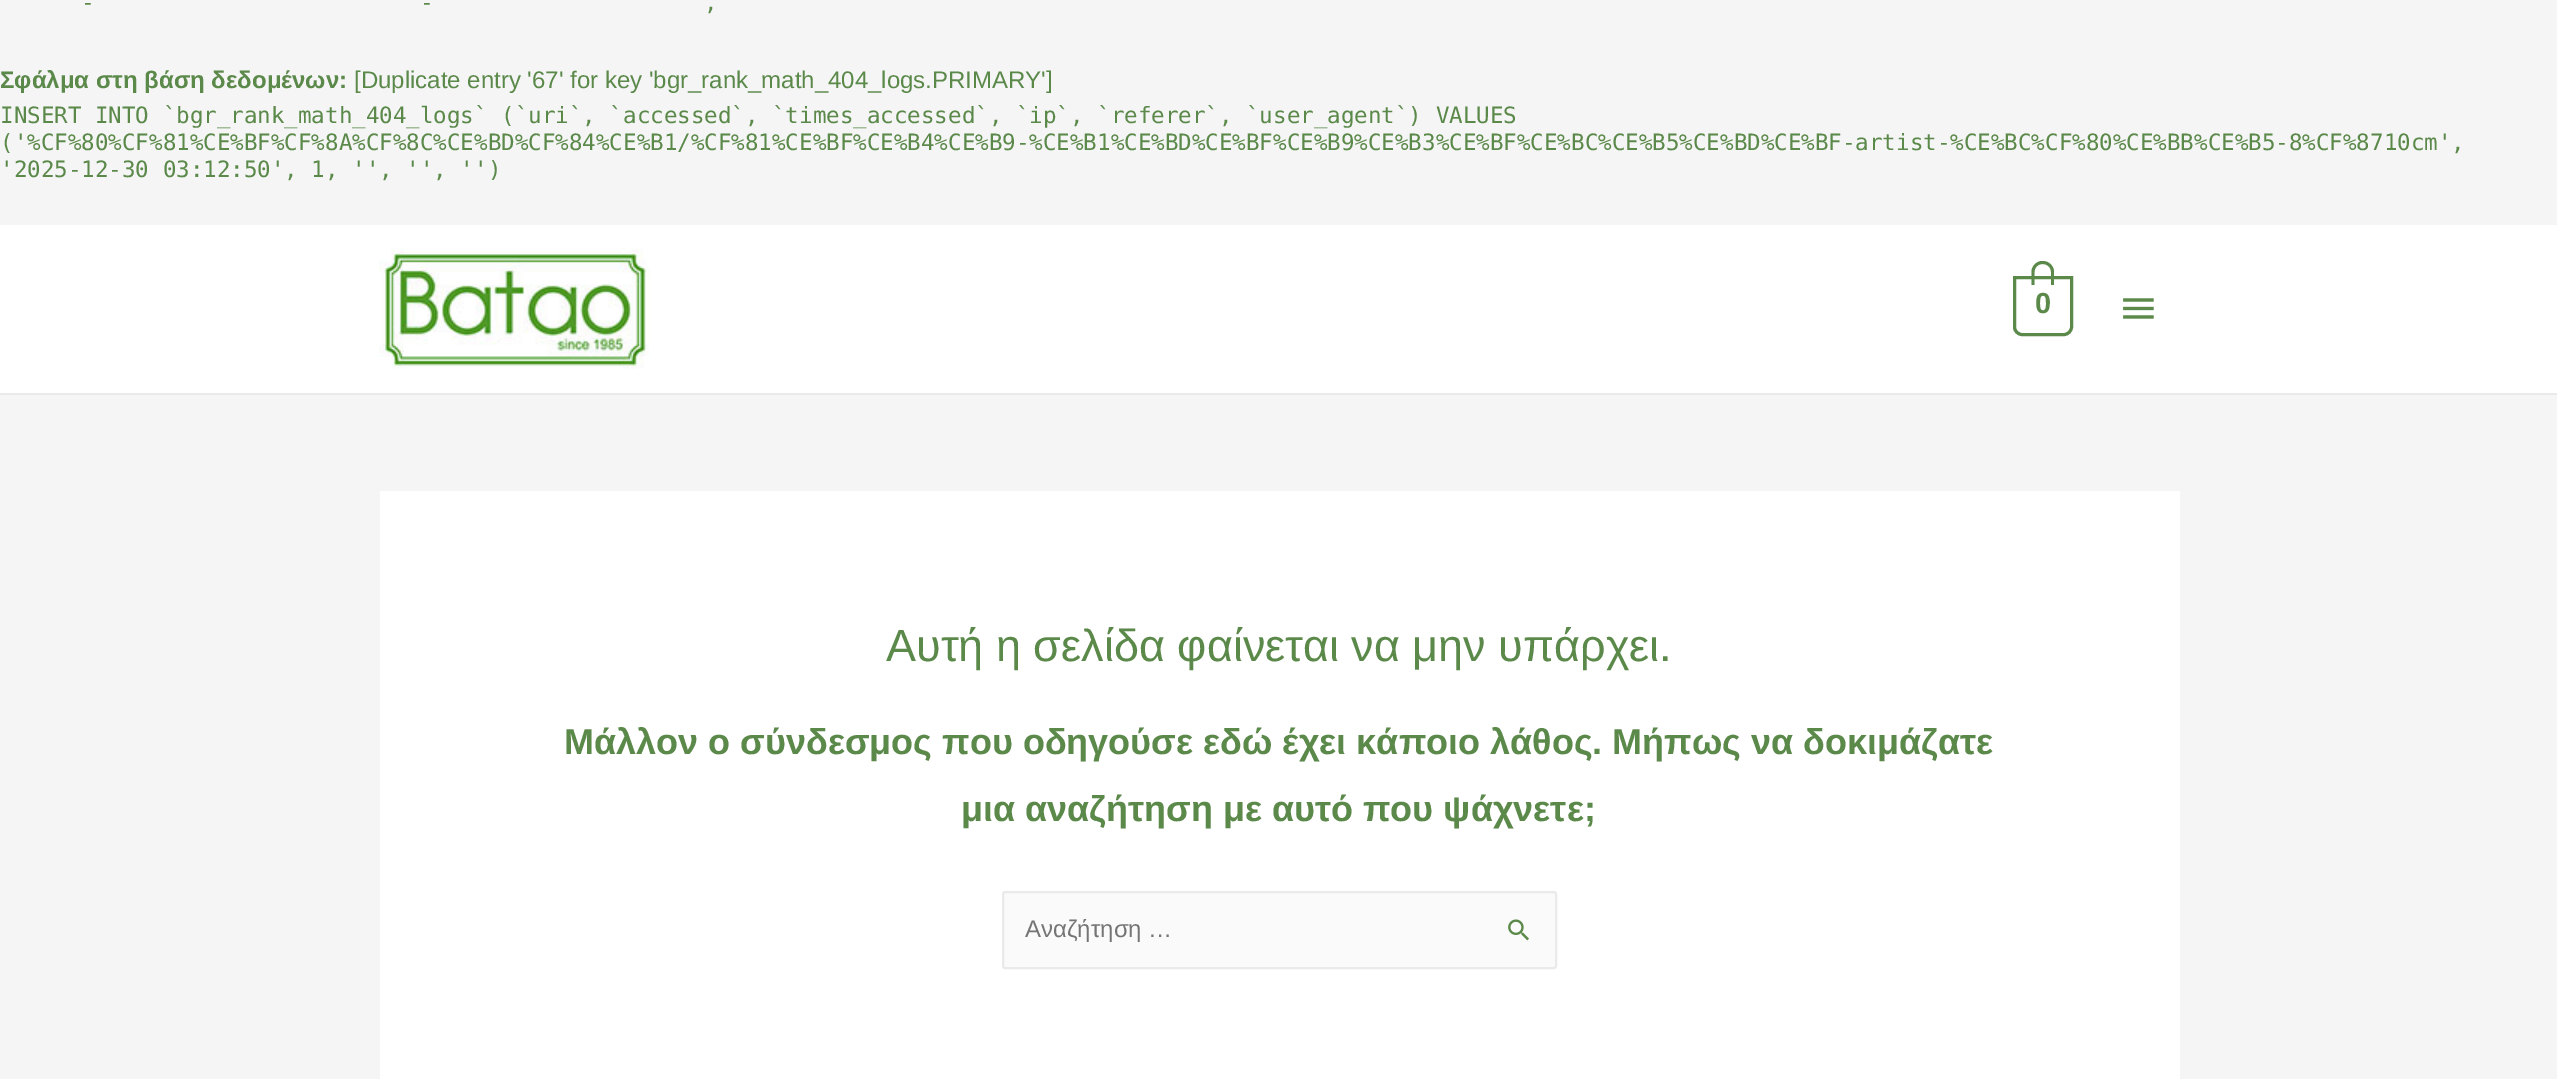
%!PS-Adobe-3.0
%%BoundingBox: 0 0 2557 1079
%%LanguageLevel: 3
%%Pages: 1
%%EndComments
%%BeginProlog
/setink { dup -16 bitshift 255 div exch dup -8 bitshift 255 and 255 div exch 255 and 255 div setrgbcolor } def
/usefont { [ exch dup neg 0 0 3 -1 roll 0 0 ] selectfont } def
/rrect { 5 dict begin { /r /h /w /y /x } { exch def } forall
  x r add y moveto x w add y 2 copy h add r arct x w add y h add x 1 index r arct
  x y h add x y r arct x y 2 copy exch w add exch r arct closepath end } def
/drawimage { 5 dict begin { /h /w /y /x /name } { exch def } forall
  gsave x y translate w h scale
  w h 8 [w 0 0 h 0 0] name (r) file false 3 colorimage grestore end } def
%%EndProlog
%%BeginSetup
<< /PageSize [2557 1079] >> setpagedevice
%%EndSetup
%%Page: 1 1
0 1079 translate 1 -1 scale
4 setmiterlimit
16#F5F5F5 setink
0 0 2557 1079 rectfill
/DejaVuSansMono-Regular 22.5 usefont
16#5B894A setink
[
    [(-) 81 10]
    [(-) 420 10]
    [(,) 704 10]
] { aload pop moveto show } forall
/LiberationSans-Bold 24 usefont
0 88 moveto (Σφάλμα στη βάση δεδομένων:) show
/LiberationSans-Regular 24 usefont
354 88 moveto ([Duplicate entry '67' for key 'bgr_rank_math_404_logs.PRIMARY']) show
/DejaVuSansMono-Regular 22.5 usefont
[
    [(INSERT INTO `bgr_rank_math_404_logs` \(`uri`, `accessed`, `times_accessed`, `ip`, `referer`, `user_agent`\) VALUES) 0 123]
    [(\('%CF%80%CF%81%CE%BF%CF%8A%CF%8C%CE%BD%CF%84%CE%B1/%CF%81%CE%BF%CE%B4%CE%B9-%CE%B1%CE%BD%CE%BF%CE%B9%CE%B3%CE%BF%CE%BC%CE%B5%CE%BD%CE%BF-artist-%CE%BC%CF%80%CE%BB%CE%B5-8%CF%8710cm',) 0 150]
    [('2025-12-30 03:12:50', 1, '', '', ''\)) 0 177]
] { aload pop moveto show } forall
16#FFFFFF setink
0 225 2557 168 rectfill
16#EAEAEA setink
0 393 2557 2 rectfill
(img1.raw) 379 248 271 121 drawimage
16#5B894A setink
3 setlinewidth
2014.5 277.5 moveto 2071.5 277.5 lineto 2071.5 327 lineto 2071.5 331 2068 334.5 2064 334.5 curveto 2022 334.5 lineto 2018 334.5 2014.5 331 2014.5 327 curveto closepath stroke
2042.5 261 moveto 2049 261 2054 266 2054 272 curveto 2054 285 lineto 2031.5 285 lineto 2031.5 272 lineto 2031.5 266 2036.5 261 2042.5 261 curveto closepath 2042.5 264 moveto 2047.5 264 2051 267.5 2051 272 curveto 2051 285 lineto 2034.5 285 lineto 2034.5 272 lineto 2034.5 267.5 2038 264 2042.5 264 curveto closepath eofill
/LiberationSans-Bold 29 usefont
2035 313 moveto (0) show
(img2.raw) 2123 298 31 21 drawimage
16#FFFFFF setink
380 491 1800 588 rectfill
/LiberationSans-Regular 45 usefont
16#5B894A setink
886 661 moveto (Αυτή η σελίδα φαίνεται να μην υπάρχει.) show
/LiberationSans-Bold 36 usefont
564 754 moveto (Μάλλον ο σύνδεσμος που οδηγούσε εδώ έχει κάποιο λάθος. Μήπως να δοκιμάζατε) show
961 821 moveto (μια αναζήτηση με αυτό που ψάχνετε;) show
16#FAFAFA setink
1003 892 553 76 2 rrect gsave fill grestore
16#EAEAEA setink
2 setlinewidth
stroke
/LiberationSans-Regular 24 usefont
16#757575 setink
1025 937 moveto (Αναζήτηση …) show
(img3.raw) 1508 919 21 22 drawimage
showpage
%%EOF
